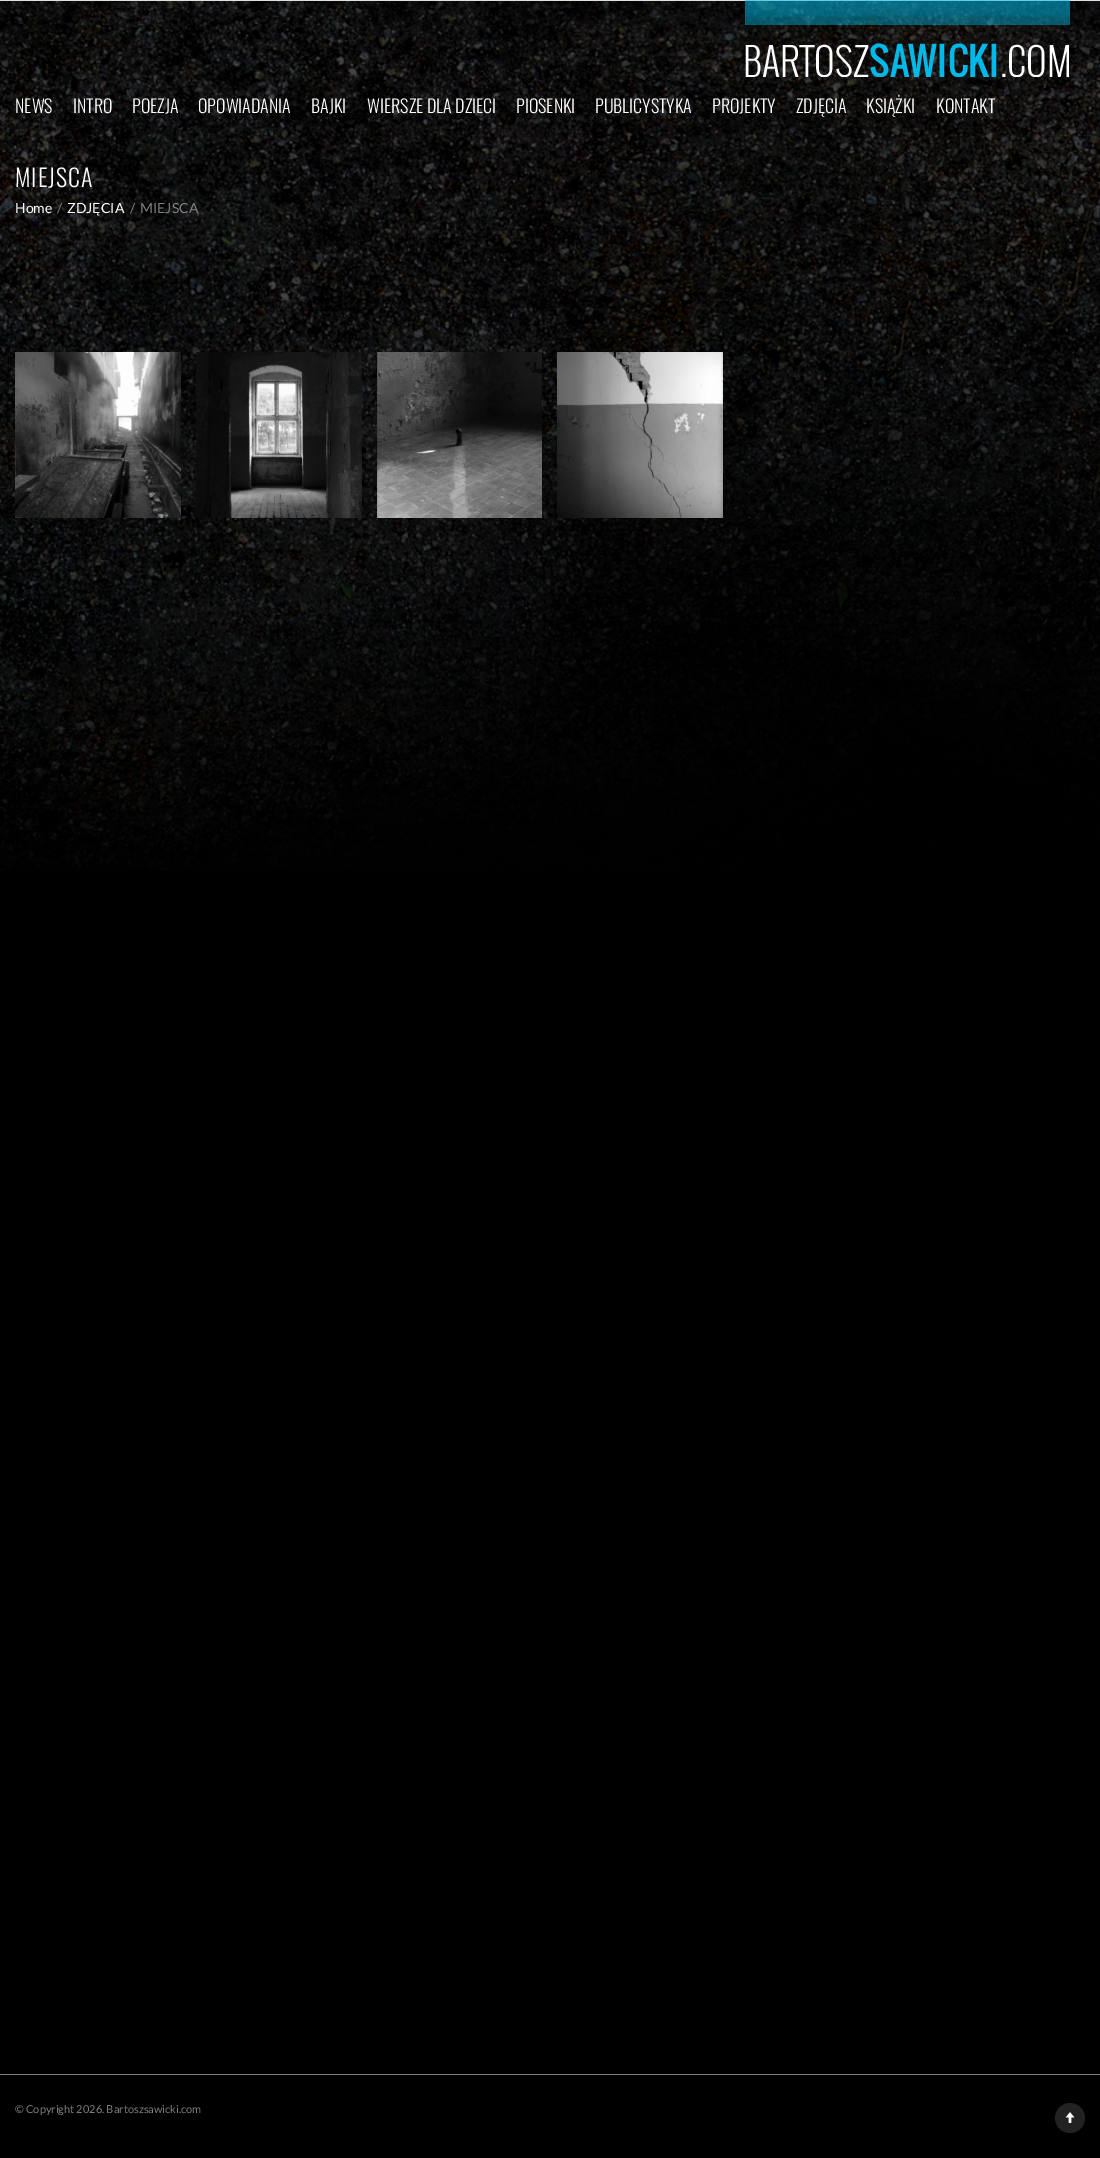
%!PS-Adobe-3.0
%%BoundingBox: 0 0 1100 2158
%%LanguageLevel: 3
%%Pages: 1
%%EndComments
%%BeginProlog
/setink { dup -16 bitshift 255 div exch dup -8 bitshift 255 and 255 div exch 255 and 255 div setrgbcolor } def
/usefont { [ exch dup neg 0 0 3 -1 roll 0 0 ] selectfont } def
/disc { newpath 0 360 arc closepath } def
/drawimage { 5 dict begin { /h /w /y /x /name } { exch def } forall
  gsave x y translate w h scale
  w h 8 [w 0 0 h 0 0] name (r) file false 3 colorimage grestore end } def
%%EndProlog
%%BeginSetup
<< /PageSize [1100 2158] >> setpagedevice
%%EndSetup
%%Page: 1 1
0 2158 translate 1 -1 scale
4 setmiterlimit
16#000000 setink
0 0 1100 2158 rectfill
(img1.raw) 0 711 1100 159 drawimage
(img3.raw) 0 1 1100 710 drawimage
16#E1E1E1 setink
0 0 1100 1 rectfill
(img2.raw) 745 0 325 77 drawimage
/Oswald-Light 18 usefont
16#FFFFFF setink
[
    [(NEWS) 15 113]
    [(INTRO) 73 113]
    [(POEZJA) 132 113]
    [(OPOWIADANIA) 198 113]
    [(BAJKI) 311 113]
    [(WIERSZE DLA DZIECI) 367 113]
    [(PIOSENKI) 516 113]
    [(PUBLICYSTYKA) 595 113]
    [(PROJEKTY) 712 113]
    [(ZDJĘCIA) 796 113]
    [(KSIĄŻKI) 866 113]
    [(KONTAKT) 936 113]
] { aload pop moveto show } forall
/Oswald-Light 24 usefont
15 187 moveto 1 0 (MIEJSCA) ashow
/Lato-Regular 14 usefont
15 213 moveto (Home) show
16#7F7F7F setink
57 213 moveto (/) show
16#FFFFFF setink
67 213 moveto (ZDJĘCIA) show
16#7F7F7F setink
130 213 moveto (/) show
140 213 moveto (MIEJSCA) show
(img4.raw) 15 352 166 166 drawimage
(img5.raw) 196 352 166 166 drawimage
(img6.raw) 377 352 165 166 drawimage
(img7.raw) 557 352 166 166 drawimage
16#7C7C7C setink
0 2074 1100 1 rectfill
/Lato-Regular 11 usefont
16#7F7F7F setink
15 2113 moveto (© Copyright 2026. Bartoszsawicki.com) show
16#222222 setink
1070 2118 15 disc fill
(img8.raw) 1065 2112 10 11 drawimage
showpage
%%EOF
